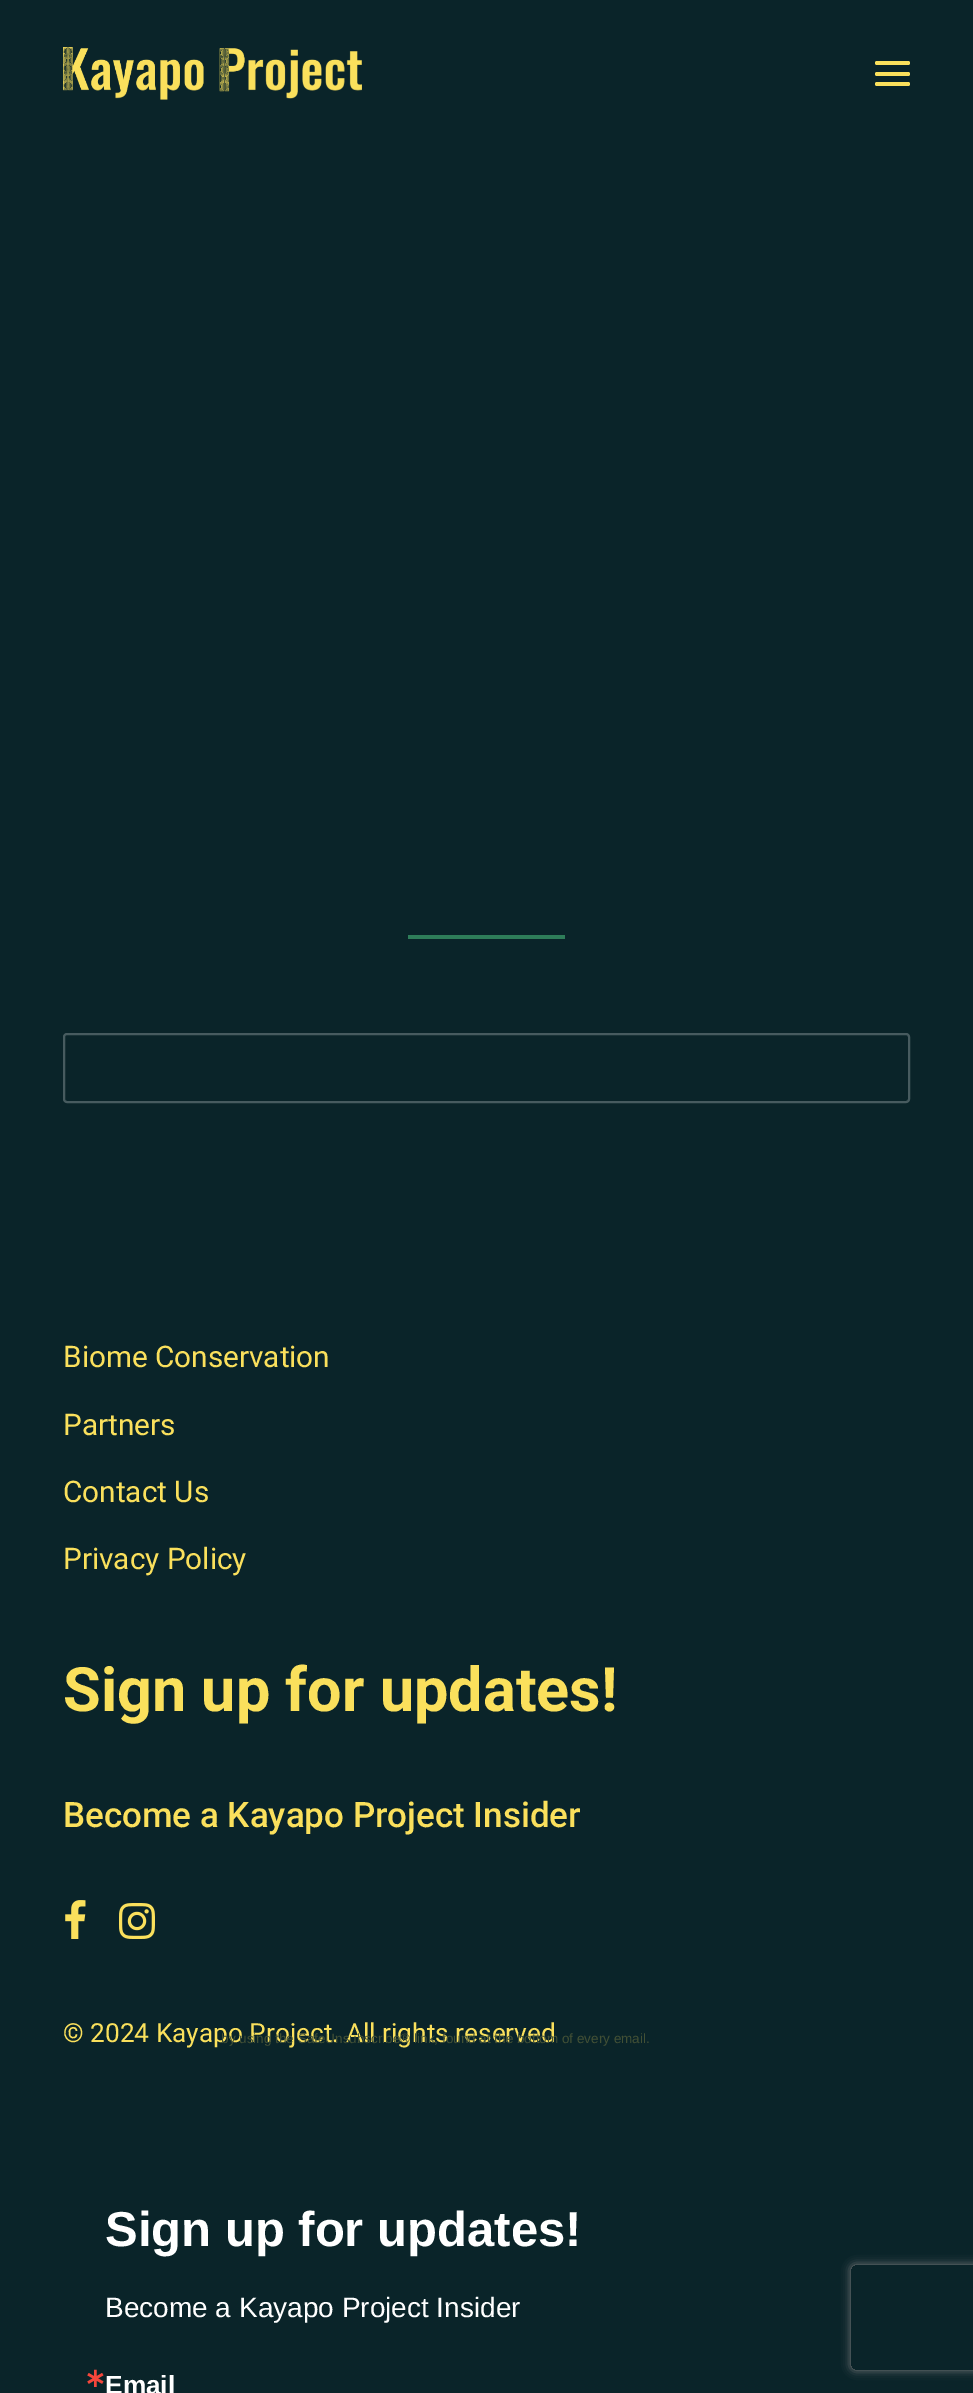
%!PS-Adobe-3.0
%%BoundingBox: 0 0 973 2393
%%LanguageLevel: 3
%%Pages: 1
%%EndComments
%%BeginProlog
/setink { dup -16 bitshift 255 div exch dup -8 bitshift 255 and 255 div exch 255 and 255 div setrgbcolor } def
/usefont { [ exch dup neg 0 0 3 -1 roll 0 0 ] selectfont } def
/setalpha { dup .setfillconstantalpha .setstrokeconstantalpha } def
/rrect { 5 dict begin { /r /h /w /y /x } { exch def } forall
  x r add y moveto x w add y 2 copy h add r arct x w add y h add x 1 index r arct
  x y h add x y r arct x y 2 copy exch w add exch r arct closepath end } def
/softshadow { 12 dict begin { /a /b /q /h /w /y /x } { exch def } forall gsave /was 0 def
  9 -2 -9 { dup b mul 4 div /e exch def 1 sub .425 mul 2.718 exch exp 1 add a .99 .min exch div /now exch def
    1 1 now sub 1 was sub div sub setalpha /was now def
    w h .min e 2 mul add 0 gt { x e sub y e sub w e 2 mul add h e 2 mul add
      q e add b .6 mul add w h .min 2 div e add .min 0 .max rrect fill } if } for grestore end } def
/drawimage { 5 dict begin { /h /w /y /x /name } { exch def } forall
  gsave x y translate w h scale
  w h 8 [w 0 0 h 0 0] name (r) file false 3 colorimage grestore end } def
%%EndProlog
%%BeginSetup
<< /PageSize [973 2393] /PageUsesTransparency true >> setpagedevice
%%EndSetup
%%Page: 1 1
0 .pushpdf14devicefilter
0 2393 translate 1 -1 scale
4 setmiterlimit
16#0A2429 setink
0 0 973 2393 rectfill
(img1.raw) 63 47 299 53 drawimage
16#FAE05C setink
875 72 35 4 2 rrect fill
875 61 35 4 2 rrect fill
875 82 35 4 2 rrect fill
16#2E7D59 setink
408 935 157 4 rectfill
16#475B5F setink
2 setlinewidth
64 1034 845 68 3 rrect stroke
/Roboto-Regular 29.75 usefont
16#FAE05C setink
[
    [(Biome Conservation) 63 1367]
    [(Partners) 63 1435]
    [(Contact Us) 63 1502]
    [(Privacy Policy) 63 1569]
] { aload pop moveto show } forall
/Roboto-Bold 61.25 usefont
63 1711 moveto (Sign up for updates!) show
/Roboto-Medium 35 usefont
63 1827 moveto (Become a Kayapo Project Insider) show
(img2.raw) 65 1900 21 39 drawimage
(img3.raw) 119 1903 36 36 drawimage
/Roboto-Regular 26.25 usefont
63 2042 moveto (© 2024 Kayapo Project. All rights reserved) show
/LiberationSans-Bold 49 usefont
16#FFFFFF setink
105 2246 moveto (Sign up for updates!) show
/LiberationSans-Regular 28 usefont
105 2317 moveto (Become a Kayapo Project Insider) show
/DejaVuSans-Bold 26.25 usefont
16#F5463B setink
84 2387 moveto (∗) show
/LiberationSans-Bold 26.25 usefont
16#FFFFFF setink
105 2394 moveto (Email) show
/LiberationSans-Regular 13.5 usefont
16#425035 setink
221 2043 moveto (by using the SafeUnsubscribe® link, found at the bottom of every email.) show
gsave
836 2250 moveto 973 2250 lineto 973 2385 lineto 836 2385 lineto closepath 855 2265 moveto 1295 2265 lineto 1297 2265 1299 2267 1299 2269 curveto 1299 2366 lineto 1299 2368 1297 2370 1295 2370 curveto 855 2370 lineto 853 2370 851 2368 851 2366 curveto 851 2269 lineto 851 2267 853 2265 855 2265 curveto closepath eoclip newpath
16#808080 setink
851 2265 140 105 4 4.5 1 softshadow
grestore
.poppdf14devicefilter showpage
%%EOF
